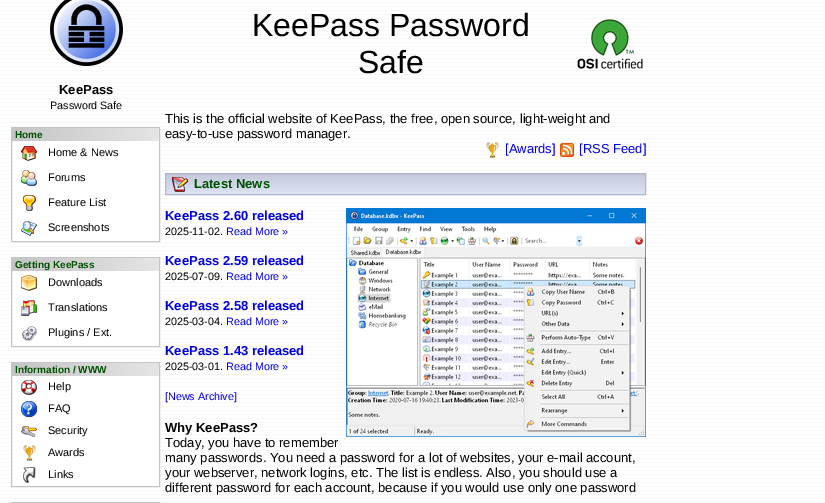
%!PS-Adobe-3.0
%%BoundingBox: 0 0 825 503
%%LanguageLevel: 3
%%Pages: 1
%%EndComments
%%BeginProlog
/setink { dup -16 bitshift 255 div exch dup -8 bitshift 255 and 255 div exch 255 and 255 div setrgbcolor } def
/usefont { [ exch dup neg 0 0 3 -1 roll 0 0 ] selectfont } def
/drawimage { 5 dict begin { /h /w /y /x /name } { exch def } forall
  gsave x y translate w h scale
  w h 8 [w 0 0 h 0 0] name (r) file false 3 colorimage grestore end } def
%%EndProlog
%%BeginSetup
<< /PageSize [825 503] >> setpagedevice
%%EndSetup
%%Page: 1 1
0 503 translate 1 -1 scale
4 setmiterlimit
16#FFFFFF setink
0 0 825 503 rectfill
(img1.raw) 0 2 825 501 drawimage
(img2.raw) 50 0 73 66 drawimage
/LiberationSans-Bold 13 usefont
16#000000 setink
59 94 moveto (KeePass) show
/LiberationSans-Regular 10.75 usefont
50 109 moveto (Password Safe) show
16#FFFFFF setink
12 142 147 97 rectfill
16#C5C5C5 setink
11.5 127.5 148 114 rectstroke
gsave 12 128 moveto 159 128 lineto 159 141 lineto 12 141 lineto closepath clip newpath
<< /ShadingType 2 /ColorSpace /DeviceRGB /Coords [12 135 159 135] /Extend [true true] /Function << /FunctionType 2 /Domain [0 1] /C0 [0.773 0.773 0.773] /C1 [0.898 0.898 0.898] /N 1 >> >> shfill grestore
/LiberationSans-Bold 10 usefont
16#005101 setink
15 138 moveto (Home) show
(img3.raw) 21 146 16 15 drawimage
/LiberationSans-Regular 11 usefont
16#000000 setink
48 156 moveto (Home & News) show
(img4.raw) 21 170 16 16 drawimage
48 181 moveto (Forums) show
(img5.raw) 23 195 13 16 drawimage
48 206 moveto (Feature List) show
(img6.raw) 21 221 16 15 drawimage
48 231 moveto (Screenshots) show
16#FFFFFF setink
12 274 147 69 rectfill
16#C5C5C5 setink
11.5 257.5 148 89 rectstroke
gsave 12 258 moveto 159 258 lineto 159 271 lineto 12 271 lineto closepath clip newpath
<< /ShadingType 2 /ColorSpace /DeviceRGB /Coords [12 265 159 265] /Extend [true true] /Function << /FunctionType 2 /Domain [0 1] /C0 [0.773 0.773 0.773] /C1 [0.898 0.898 0.898] /N 1 >> >> shfill grestore
/LiberationSans-Bold 10 usefont
16#005101 setink
15 268 moveto (Getting KeePass) show
(img7.raw) 21 275 16 16 drawimage
/LiberationSans-Regular 11 usefont
16#000000 setink
48 286 moveto (Downloads) show
(img8.raw) 21 300 16 16 drawimage
48 311 moveto (Translations) show
(img9.raw) 22 326 15 15 drawimage
48 336 moveto (Plugins / Ext.) show
16#FFFFFF setink
12 378 147 105 rectfill
16#C5C5C5 setink
11.5 362.5 148 124 rectstroke
gsave 12 363 moveto 159 363 lineto 159 376 lineto 12 376 lineto closepath clip newpath
<< /ShadingType 2 /ColorSpace /DeviceRGB /Coords [12 370 159 370] /Extend [true true] /Function << /FunctionType 2 /Domain [0 1] /C0 [0.773 0.773 0.773] /C1 [0.898 0.898 0.898] /N 1 >> >> shfill grestore
/LiberationSans-Bold 10 usefont
16#005101 setink
15 373 moveto (Information / WWW) show
(img10.raw) 21 380 16 15 drawimage
/LiberationSans-Regular 11 usefont
16#000000 setink
48 390 moveto (Help) show
(img11.raw) 21 401 16 16 drawimage
48 412 moveto (FAQ) show
(img12.raw) 21 426 16 11 drawimage
48 434 moveto (Security) show
(img13.raw) 23 445 13 16 drawimage
48 456 moveto (Awards) show
(img14.raw) 23 467 13 16 drawimage
48 478 moveto (Links) show
16#C5C5C5 setink
11.5 502.5 148 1 rectstroke
/LiberationSans-Regular 32 usefont
16#000000 setink
252 36 moveto (KeePass Password) show
358 73 moveto (Safe) show
(img15.raw) 577 19 66 50 drawimage
/LiberationSans-Regular 13 usefont
165 123 moveto (This is the official website of KeePass, the free, open source, light-weight and) show
165 138 moveto (easy-to-use password manager.) show
(img16.raw) 486 142 13 16 drawimage
16#0000DD setink
505 153 moveto ([Awards]) show
(img17.raw) 560 143 14 14 drawimage
579 153 moveto ([RSS Feed]) show
gsave 166 174 moveto 645 174 lineto 645 194 lineto 166 194 lineto closepath clip newpath
<< /ShadingType 2 /ColorSpace /DeviceRGB /Coords [406 174 406 194] /Extend [true true] /Function << /FunctionType 2 /Domain [0 1] /C0 [0.773 0.788 0.859] /C1 [0.859 0.89 0.949] /N 1 >> >> shfill grestore
16#AFB5CF setink
165.5 173.5 480 21 rectstroke
(img18.raw) 172 177 16 15 drawimage
/LiberationSans-Bold 13 usefont
16#005101 setink
194 188 moveto (Latest News) show
16#0000DD setink
165 220 moveto (KeePass 2.60 released) show
(img19.raw) 346 208 300 229 drawimage
/LiberationSans-Regular 10.75 usefont
16#000000 setink
165 235 moveto (2025-11-02.) show
16#0000DD setink
226 235 moveto (Read More ») show
/LiberationSans-Bold 13 usefont
165 265 moveto (KeePass 2.59 released) show
/LiberationSans-Regular 10.75 usefont
16#000000 setink
165 280 moveto (2025-07-09.) show
16#0000DD setink
226 280 moveto (Read More ») show
/LiberationSans-Bold 13 usefont
165 310 moveto (KeePass 2.58 released) show
/LiberationSans-Regular 10.75 usefont
16#000000 setink
165 325 moveto (2025-03-04.) show
16#0000DD setink
226 325 moveto (Read More ») show
/LiberationSans-Bold 13 usefont
165 355 moveto (KeePass 1.43 released) show
/LiberationSans-Regular 10.75 usefont
16#000000 setink
165 370 moveto (2025-03-01.) show
16#0000DD setink
226 370 moveto (Read More ») show
165 400 moveto ([News Archive]) show
/LiberationSans-Bold 13 usefont
16#000000 setink
165 432 moveto (Why KeePass?) show
/LiberationSans-Regular 13 usefont
[
    [(Today, you have to remember) 165 447]
    [(many passwords. You need a password for a lot of websites, your e-mail account,) 165 462]
    [(your webserver, network logins, etc. The list is endless. Also, you should use a) 165 477]
    [(different password for each account, because if you would use only one password) 165 492]
] { aload pop moveto show } forall
showpage
%%EOF
